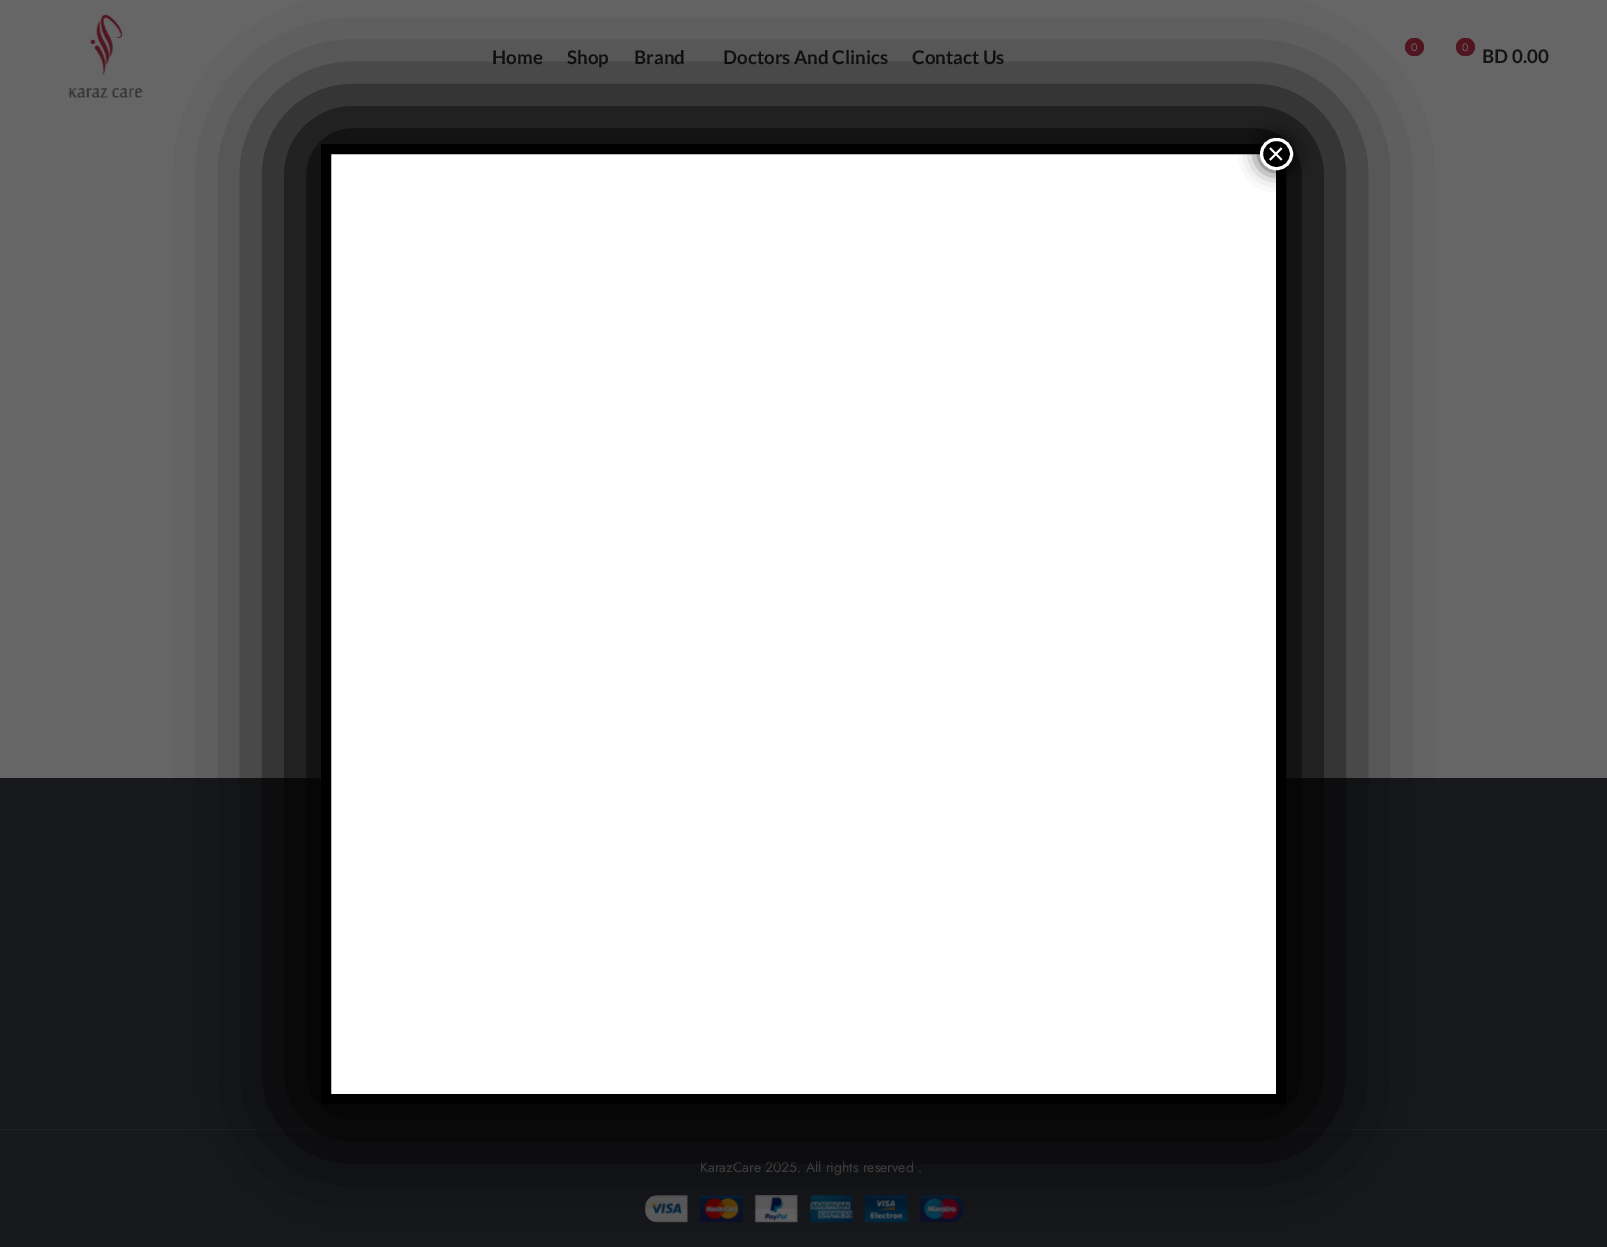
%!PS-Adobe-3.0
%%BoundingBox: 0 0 1607 1247
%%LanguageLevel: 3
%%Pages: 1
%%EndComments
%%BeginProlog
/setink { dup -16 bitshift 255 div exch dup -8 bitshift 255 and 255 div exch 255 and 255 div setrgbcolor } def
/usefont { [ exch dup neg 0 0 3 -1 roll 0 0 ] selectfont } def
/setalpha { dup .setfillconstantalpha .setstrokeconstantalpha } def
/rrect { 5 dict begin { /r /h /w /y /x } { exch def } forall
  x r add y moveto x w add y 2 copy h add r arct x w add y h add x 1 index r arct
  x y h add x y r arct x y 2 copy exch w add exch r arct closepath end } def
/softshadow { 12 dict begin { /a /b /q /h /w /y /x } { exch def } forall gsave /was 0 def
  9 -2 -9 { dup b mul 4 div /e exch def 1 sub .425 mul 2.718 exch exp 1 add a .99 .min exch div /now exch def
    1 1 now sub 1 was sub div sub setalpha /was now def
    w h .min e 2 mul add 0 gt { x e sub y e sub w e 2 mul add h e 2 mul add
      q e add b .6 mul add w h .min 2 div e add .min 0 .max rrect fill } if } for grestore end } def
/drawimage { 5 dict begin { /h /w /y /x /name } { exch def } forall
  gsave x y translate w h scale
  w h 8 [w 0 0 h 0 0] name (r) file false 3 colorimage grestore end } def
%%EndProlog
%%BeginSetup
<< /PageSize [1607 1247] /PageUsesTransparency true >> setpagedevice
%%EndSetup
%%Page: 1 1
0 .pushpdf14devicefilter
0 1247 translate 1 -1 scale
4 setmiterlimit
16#18191C setink
0 0 1607 1247 rectfill
16#666666 setink
0 0 1607 778 rectfill
(img1.raw) 68 14 75 84 drawimage
/Lato-Bold 18.75 usefont
16#141414 setink
[
    [(Home) 492 64]
    [(Shop) 567 64]
    [(Brand) 634 64]
    [(Doctors And Clinics) 723 64]
    [(Contact Us) 912 64]
] { aload pop moveto show } forall
16#511520 setink
1405 38 19 18 9 rrect fill
/Jost-Regular 11 usefont
16#666666 setink
1411 51 moveto (0) show
16#511520 setink
1456 38 19 18 9 rrect fill
16#666666 setink
1462 51 moveto (0) show
/Lato-Bold 18.75 usefont
16#141414 setink
1482 63 moveto (BD 0.00) show
16#202024 setink
0 1129 1607 1 rectfill
/Jost-Regular 14 usefont
16#565657 setink
700 1172 moveto (KarazCare 2025. All rights reserved .) show
(img2.raw) 645 1195 319 28 drawimage
16#020202 setink
273 95 1062 1058 53 44.5 1 softshadow
16#FFFFFF setink
331 154 945 940 rectfill
16#000000 setink
10 setlinewidth
326 149 moveto 1281 149 lineto 1281 1099 lineto 326 1099 lineto closepath stroke
16#020202 setink
1259 136 35 35 17.5 9.5 0.75 softshadow
16#000000 setink
1261.5 139.5 30 29 14.5 rrect gsave fill grestore
16#FFFFFF setink
3 setlinewidth
stroke
/LiberationSans-Regular 30 usefont
1267 164 moveto (×) show
.poppdf14devicefilter showpage
%%EOF
